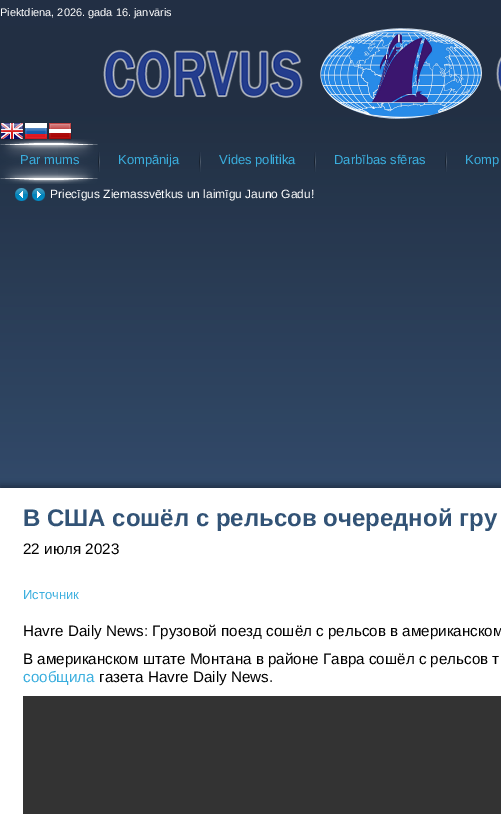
%!PS-Adobe-3.0
%%BoundingBox: 0 0 501 814
%%LanguageLevel: 3
%%Pages: 1
%%EndComments
%%BeginProlog
/setink { dup -16 bitshift 255 div exch dup -8 bitshift 255 and 255 div exch 255 and 255 div setrgbcolor } def
/usefont { [ exch dup neg 0 0 3 -1 roll 0 0 ] selectfont } def
/setalpha { dup .setfillconstantalpha .setstrokeconstantalpha } def
/rrect { 5 dict begin { /r /h /w /y /x } { exch def } forall
  x r add y moveto x w add y 2 copy h add r arct x w add y h add x 1 index r arct
  x y h add x y r arct x y 2 copy exch w add exch r arct closepath end } def
/softshadow { 12 dict begin { /a /b /q /h /w /y /x } { exch def } forall gsave /was 0 def
  9 -2 -9 { dup b mul 4 div /e exch def 1 sub .425 mul 2.718 exch exp 1 add a .99 .min exch div /now exch def
    1 1 now sub 1 was sub div sub setalpha /was now def
    w h .min e 2 mul add 0 gt { x e sub y e sub w e 2 mul add h e 2 mul add
      q e add b .6 mul add w h .min 2 div e add .min 0 .max rrect fill } if } for grestore end } def
/drawimage { 5 dict begin { /h /w /y /x /name } { exch def } forall
  gsave x y translate w h scale
  w h 8 [w 0 0 h 0 0] name (r) file false 3 colorimage grestore end } def
%%EndProlog
%%BeginSetup
<< /PageSize [501 814] /PageUsesTransparency true >> setpagedevice
%%EndSetup
%%Page: 1 1
0 .pushpdf14devicefilter
0 814 translate 1 -1 scale
4 setmiterlimit
16#FFFFFF setink
0 0 501 814 rectfill
(img1.raw) 0 0 501 488 drawimage
/LiberationSans-Regular 11 usefont
0 16 moveto (Piektdiena, 2026. gada 16. janvāris) show
(img2.raw) 103 28 398 91 drawimage
(img3.raw) 0 122 24 19 drawimage
(img4.raw) 24 122 24 19 drawimage
(img5.raw) 48 122 24 19 drawimage
(img6.raw) 0 139 40 45 drawimage
(img7.raw) 40 139 18 45 drawimage
(img8.raw) 58 139 40 45 drawimage
(img9.raw) 98 152 2 20 drawimage
/LiberationSans-Regular 13 usefont
16#3AAEDE setink
118 164 moveto (Kompānija) show
(img9.raw) 199 152 2 20 drawimage
219 164 moveto (Vides politika) show
(img9.raw) 314 152 2 20 drawimage
334 164 moveto (Darbības sfēras) show
20 164 moveto (Par mums) show
(img9.raw) 445 152 2 20 drawimage
465 164 moveto (Komp) show
(img10.raw) 15 188 13 13 drawimage
(img11.raw) 32 188 13 13 drawimage
/LiberationSans-Regular 12 usefont
16#FFFFFF setink
50 198 moveto (Priecīgus Ziemassvētkus un laimīgu Jauno Gadu!) show
16#000000 setink
0 486 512 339 0 3.5 0.4 softshadow
16#FFFFFF setink
0 488 501 326 rectfill
/LiberationSans-Bold 24 usefont
16#325376 setink
23 526 moveto (В США сошёл с рельсов очередной гру) show
/LiberationSans-Regular 15.2 usefont
16#000000 setink
23 554 moveto (22 июля 2023) show
/LiberationSans-Regular 13 usefont
16#3AAEDE setink
23 599 moveto (Источник) show
/LiberationSans-Regular 15.2 usefont
16#000000 setink
23 636 moveto (Havre Daily News: Грузовой поезд сошёл с рельсов в американском) show
23 664 moveto (В американском штате Монтана в районе Гавра сошёл с рельсов т) show
16#3AAEDE setink
23 682 moveto (сообщила) show
16#000000 setink
99 682 moveto (газета Havre Daily News.) show
16#333333 setink
23 696 478 118 rectfill
.poppdf14devicefilter showpage
%%EOF
